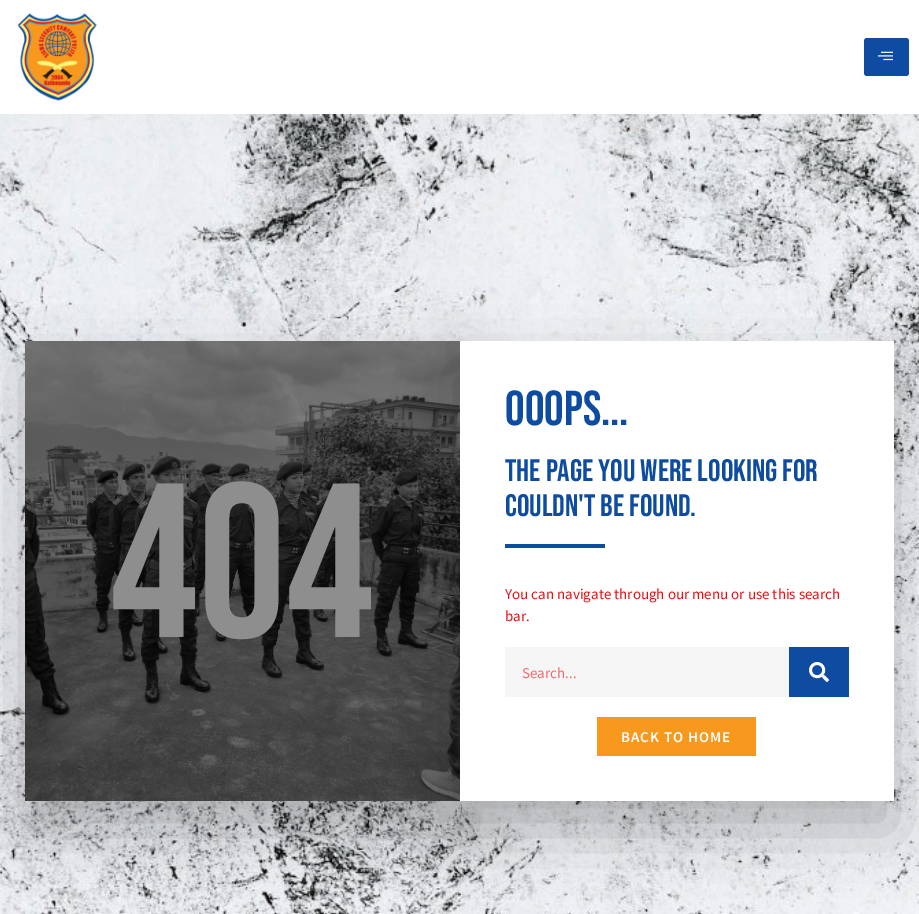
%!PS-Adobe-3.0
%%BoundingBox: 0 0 919 914
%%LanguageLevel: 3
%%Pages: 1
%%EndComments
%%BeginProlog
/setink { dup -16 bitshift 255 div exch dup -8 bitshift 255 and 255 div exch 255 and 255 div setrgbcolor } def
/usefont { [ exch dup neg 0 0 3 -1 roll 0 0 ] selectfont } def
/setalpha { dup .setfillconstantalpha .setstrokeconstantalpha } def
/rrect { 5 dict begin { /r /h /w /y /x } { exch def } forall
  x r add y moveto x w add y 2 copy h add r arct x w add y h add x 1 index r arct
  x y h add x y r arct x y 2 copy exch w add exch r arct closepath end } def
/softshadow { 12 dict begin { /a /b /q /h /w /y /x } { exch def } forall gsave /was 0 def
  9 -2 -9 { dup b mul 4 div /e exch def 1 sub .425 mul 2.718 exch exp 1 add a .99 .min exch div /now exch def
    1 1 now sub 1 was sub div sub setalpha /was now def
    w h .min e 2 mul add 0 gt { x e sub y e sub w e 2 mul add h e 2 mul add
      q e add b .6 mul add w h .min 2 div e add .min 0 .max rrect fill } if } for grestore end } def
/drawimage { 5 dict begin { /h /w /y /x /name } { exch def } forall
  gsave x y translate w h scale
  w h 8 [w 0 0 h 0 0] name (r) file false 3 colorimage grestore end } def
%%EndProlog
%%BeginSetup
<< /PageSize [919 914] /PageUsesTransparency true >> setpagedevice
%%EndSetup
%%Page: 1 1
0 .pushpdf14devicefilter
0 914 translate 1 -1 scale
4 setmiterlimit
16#FFFFFF setink
0 0 919 914 rectfill
(img1.raw) 17 13 80 88 drawimage
16#0E4CA1 setink
864 38 45 38 3 rrect fill
(img2.raw) 878 51 15 10 drawimage
(img3.raw) 0 114 919 800 drawimage
16#000000 setink
25 371 435 460 0 30 0.25 softshadow
16#010101 setink
25 341 435 460 rectfill
(img4.raw) 25 341 435 460 drawimage
/BebasNeue-Regular 220 usefont
16#8E8E8E setink
110 637 moveto (404) show
16#000000 setink
460 371 434 460 0 30 0.25 softshadow
16#FFFFFF setink
460 341 434 460 rectfill
/BebasNeue-Regular 49 usefont
16#0E4CA1 setink
505 425 moveto (Ooops...) show
/BebasNeue-Regular 31 usefont
505 481 moveto (The page you were looking for) show
505 516 moveto (couldn't be found.) show
505 544 100 4 rectfill
/SourceSansPro-Regular 15 usefont
16#E60F14 setink
505 599 moveto (You can navigate through our menu or use this search) show
505 621 moveto (bar.) show
16#F5F5F5 setink
505 647 284 50 rectfill
16#EC6B6E setink
522 678 moveto (Search...) show
16#0E4CA1 setink
789 647 60 50 rectfill
(img5.raw) 809 662 20 20 drawimage
16#F8981D setink
597 717 159 39 rectfill
/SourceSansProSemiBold-SemiBold 15 usefont
16#FFFFFF setink
621 742 moveto 1 0 (BACK TO HOME) ashow
.poppdf14devicefilter showpage
%%EOF
